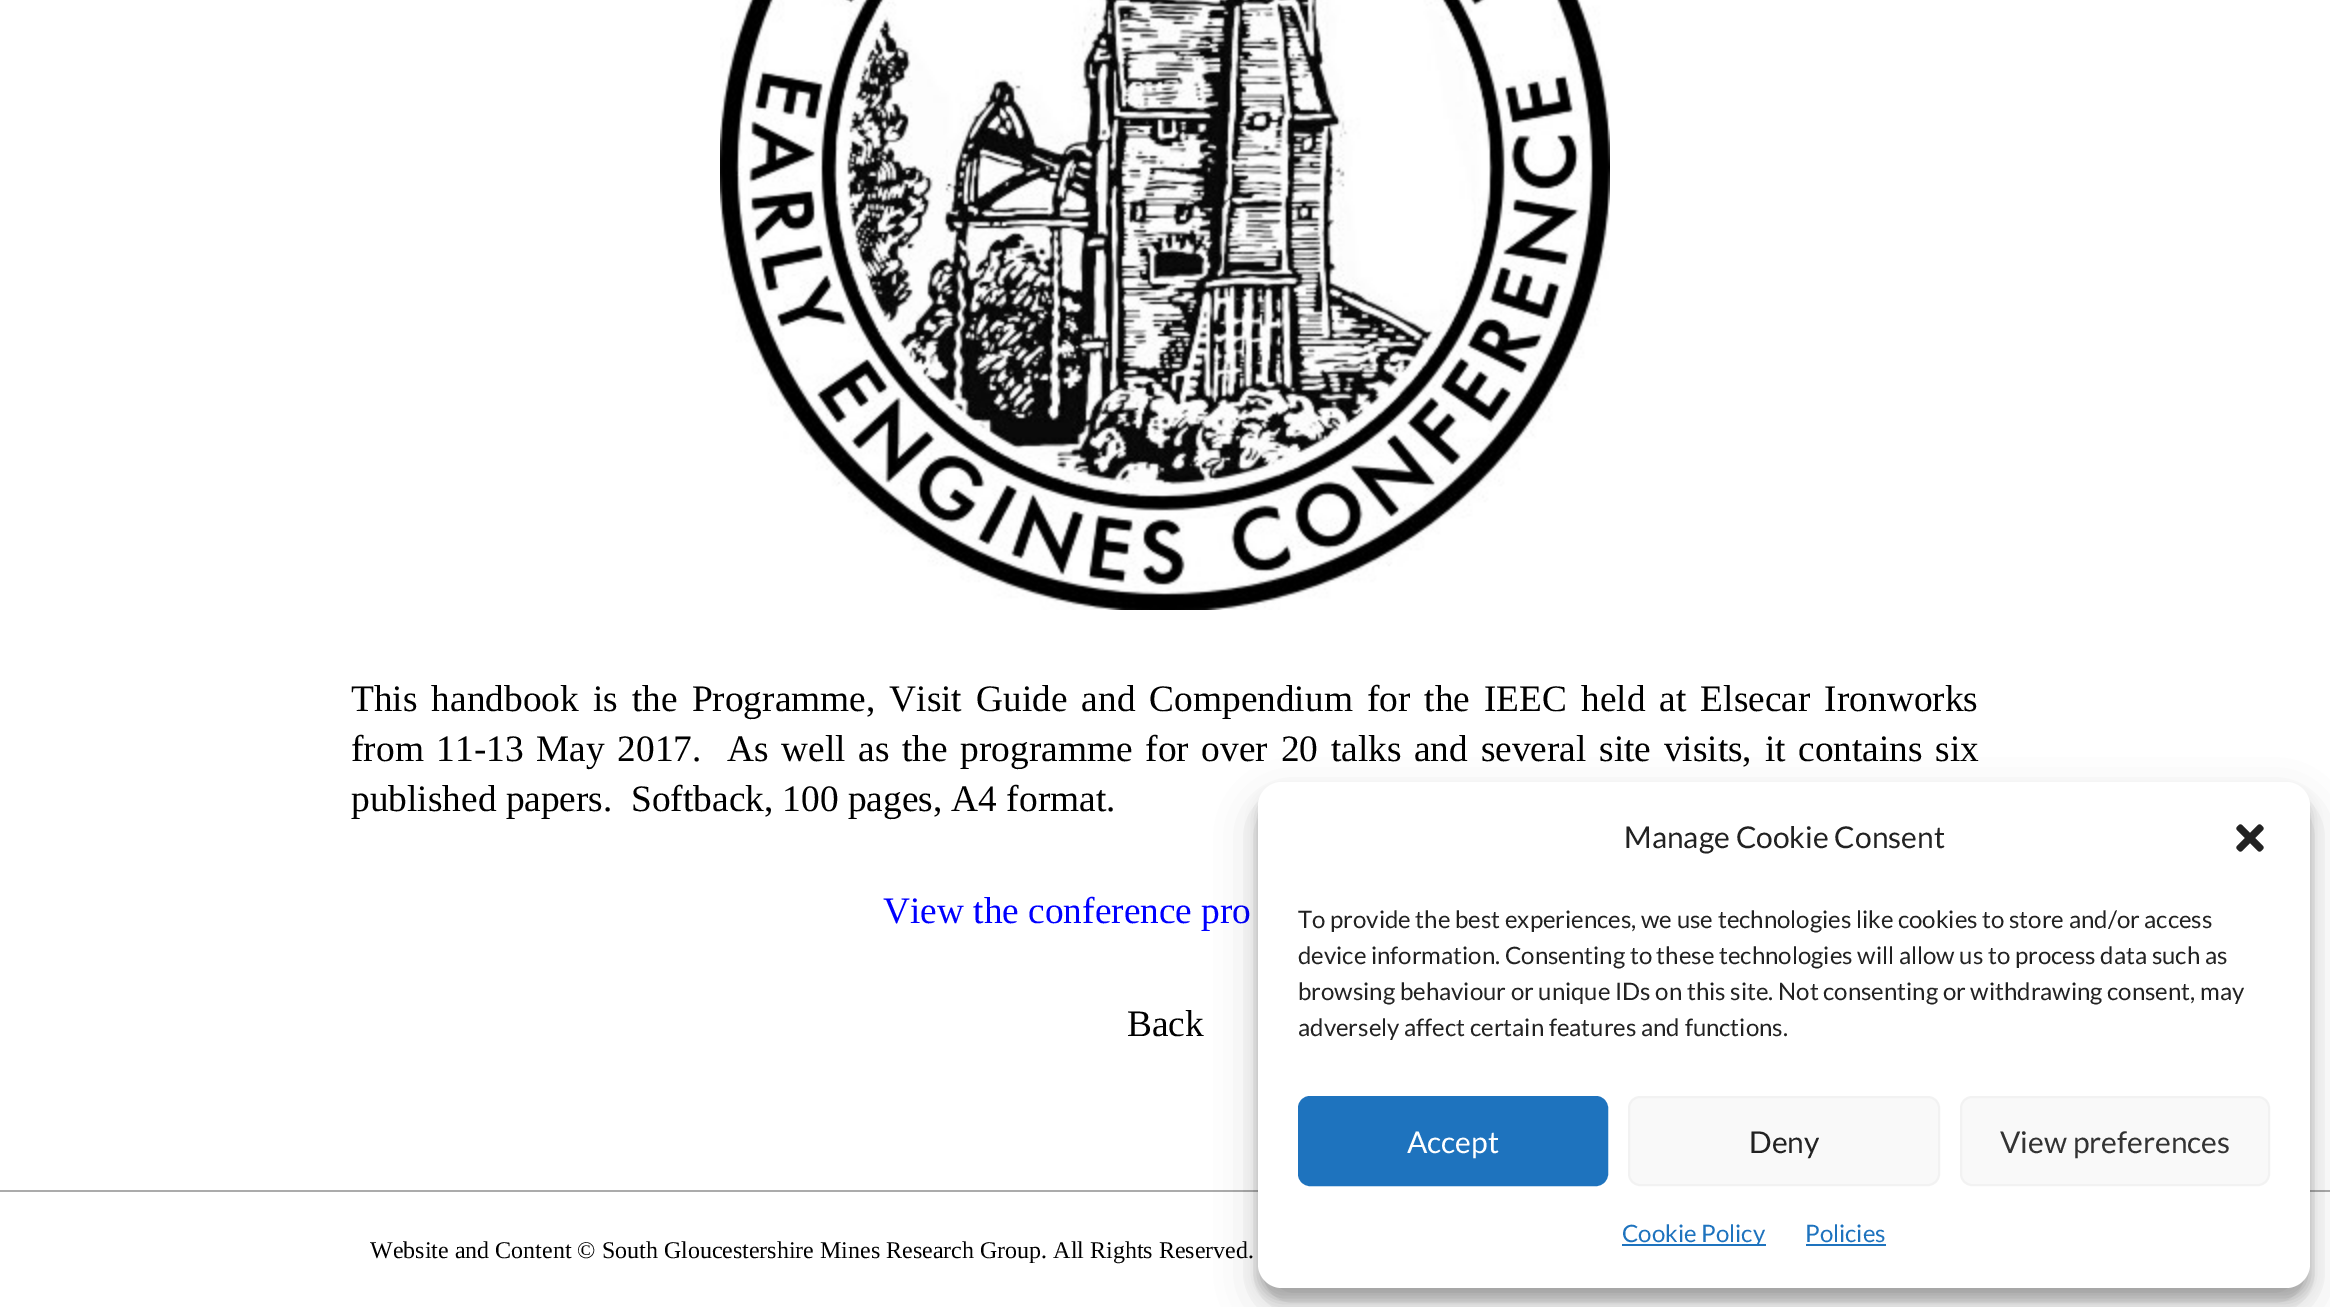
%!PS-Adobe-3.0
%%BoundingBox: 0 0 2330 1307
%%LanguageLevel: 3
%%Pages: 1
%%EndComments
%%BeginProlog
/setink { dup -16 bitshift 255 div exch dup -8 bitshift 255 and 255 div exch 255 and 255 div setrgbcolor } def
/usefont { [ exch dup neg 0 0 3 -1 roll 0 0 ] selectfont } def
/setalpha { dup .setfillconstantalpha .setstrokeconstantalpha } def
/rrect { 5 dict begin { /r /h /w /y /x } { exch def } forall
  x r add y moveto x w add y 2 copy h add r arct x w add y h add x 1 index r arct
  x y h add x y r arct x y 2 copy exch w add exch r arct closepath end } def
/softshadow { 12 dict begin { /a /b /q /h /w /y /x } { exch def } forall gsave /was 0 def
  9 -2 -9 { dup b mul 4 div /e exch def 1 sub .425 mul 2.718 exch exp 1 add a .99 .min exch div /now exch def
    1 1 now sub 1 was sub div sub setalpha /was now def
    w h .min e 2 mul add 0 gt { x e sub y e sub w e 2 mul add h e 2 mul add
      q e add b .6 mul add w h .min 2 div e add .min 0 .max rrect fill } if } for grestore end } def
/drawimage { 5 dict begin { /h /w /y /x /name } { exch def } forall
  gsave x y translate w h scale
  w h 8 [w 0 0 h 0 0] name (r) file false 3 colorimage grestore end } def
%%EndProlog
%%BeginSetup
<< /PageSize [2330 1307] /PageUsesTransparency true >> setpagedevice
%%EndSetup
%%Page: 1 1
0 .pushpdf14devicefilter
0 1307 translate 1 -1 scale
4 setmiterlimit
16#FFFFFF setink
0 0 2330 1307 rectfill
(img1.raw) 720 0 890 610 drawimage
/LiberationSerif-Regular 37.35 usefont
16#000000 setink
351 711 moveto 4.75 0 32 (This handbook is the Programme, Visit Guide and Compendium for the IEEC held at Elsecar Ironworks) widthshow
351 761 moveto 3.4 0 32 (from 11-13 May 2017.  As well as the programme for over 20 talks and several site visits, it contains six) widthshow
351 811 moveto (published papers.  Softback, 100 pages, A4 format.) show
16#0000FF setink
883 923 moveto (View the conference pro) show
16#000000 setink
1127 1036 moveto (Back) show
16#ABABAB setink
0 1190 2330 2 rectfill
/LiberationSerif-Regular 24 usefont
16#000000 setink
370 1258 moveto (Website and Content © South Gloucestershire Mines Research Group. All Rights Reserved.) show
1258 794 1052 506 24 6 0.23 softshadow
1258 802 1052 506 24 20 0.19 softshadow
16#FFFFFF setink
1258 782 1052 506 24 rrect fill
/Lato-Regular 30 usefont
16#222222 setink
1624 848 moveto (Manage Cookie Consent) show
(img2.raw) 2236 824 28 28 drawimage
/Lato-Regular 24 usefont
[
    [(To provide the best experiences, we use technologies like cookies to store and/or access) 1298 928]
    [(device information. Consenting to these technologies will allow us to process data such as) 1298 964]
    [(browsing behaviour or unique IDs on this site. Not consenting or withdrawing consent, may) 1298 1000]
    [(adversely affect certain features and functions.) 1298 1036]
] { aload pop moveto show } forall
16#1E73BE setink
1299 1097 308 88 11 rrect gsave fill grestore
2 setlinewidth
stroke
/Lato-Regular 30 usefont
16#FFFFFF setink
1407 1153 moveto (Accept) show
16#F9F9F9 setink
1629 1097 310 88 11 rrect gsave fill grestore
16#F2F2F2 setink
stroke
16#222222 setink
1749 1153 moveto (Deny) show
16#F9F9F9 setink
1961 1097 308 88 11 rrect gsave fill grestore
16#F2F2F2 setink
stroke
16#333333 setink
2000 1153 moveto (View preferences) show
16#1E73BE setink
1622 1244 144 2 rectfill
/Lato-Regular 24 usefont
1622 1242 moveto (Cookie Policy) show
1805 1242 moveto (Policies) show
1806 1244 80 2 rectfill
.poppdf14devicefilter showpage
%%EOF
